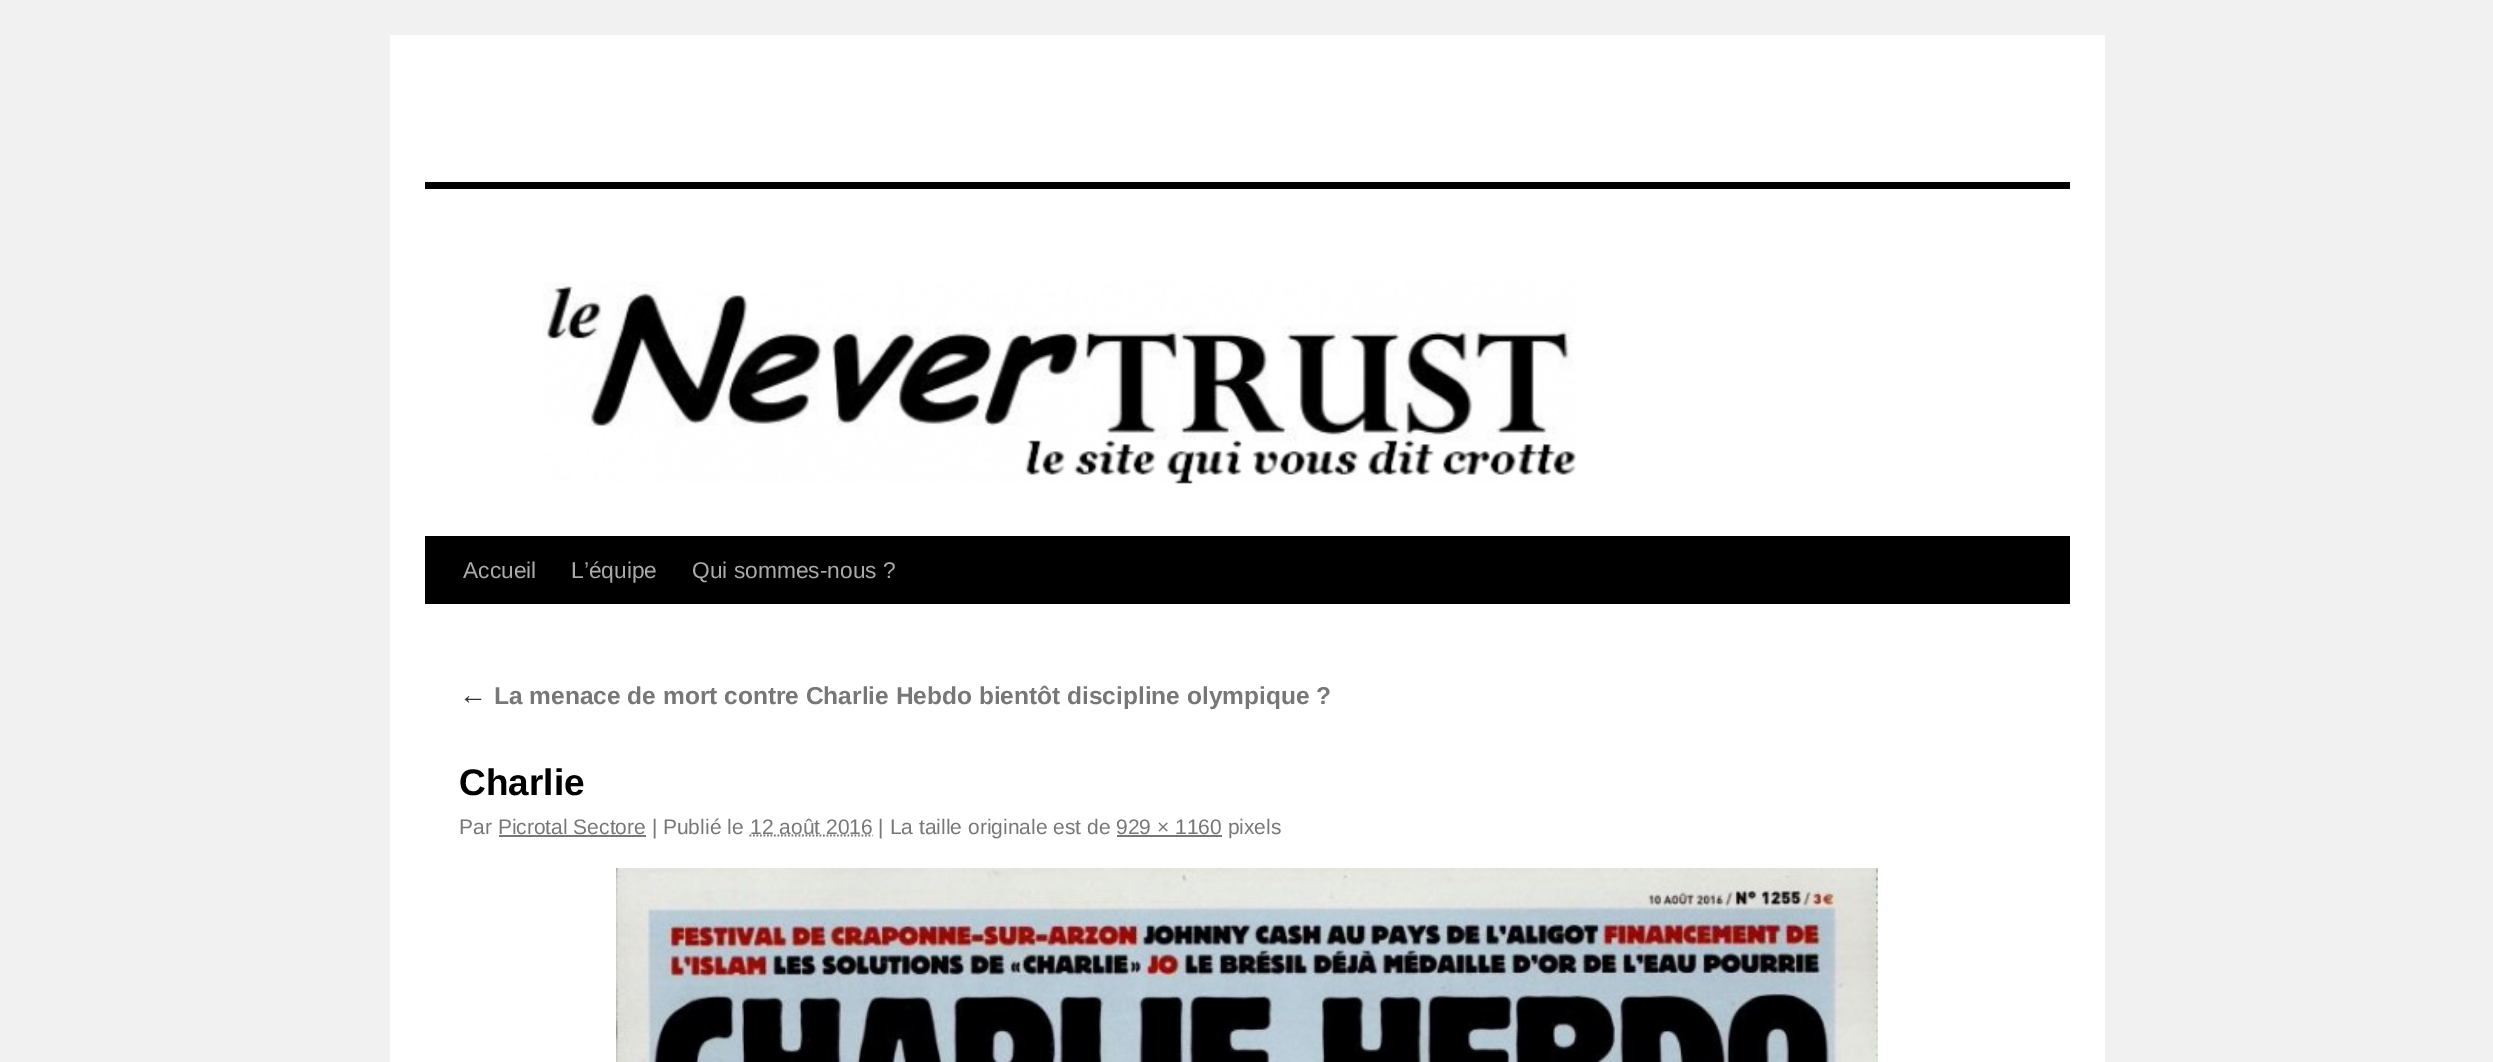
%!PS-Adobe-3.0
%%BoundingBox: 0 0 2493 1062
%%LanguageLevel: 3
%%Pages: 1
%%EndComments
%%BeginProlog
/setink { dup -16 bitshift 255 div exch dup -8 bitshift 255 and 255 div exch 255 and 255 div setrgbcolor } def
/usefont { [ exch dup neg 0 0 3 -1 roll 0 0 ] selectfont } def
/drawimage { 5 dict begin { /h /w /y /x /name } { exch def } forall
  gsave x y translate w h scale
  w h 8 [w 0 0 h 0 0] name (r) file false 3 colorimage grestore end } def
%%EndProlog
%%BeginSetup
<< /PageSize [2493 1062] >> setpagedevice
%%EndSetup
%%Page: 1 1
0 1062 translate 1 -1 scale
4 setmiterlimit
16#F1F1F1 setink
0 0 2493 1062 rectfill
[
    [390 35 1715 1027 16#FFFFFF]
    [425 182 1645 7 16#000000]
    [425 536 1645 68 16#000000]
] { aload pop setink rectfill } forall
(img1.raw) 543 282 1033 202 drawimage
/LiberationSans-Regular 22.75 usefont
16#AAAAAA setink
[
    [(Accueil) 463 578]
    [(L’équipe) 571 578]
    [(Qui sommes-nous ?) 692 578]
] { aload pop moveto show } forall
/LiberationSerif-Italic 28 usefont
16#333333 setink
459 704 moveto (←) show
/LiberationSans-Bold 24.5 usefont
16#777777 setink
494 704 moveto (La menace de mort contre Charlie Hebdo bientôt discipline olympique ?) show
/LiberationSans-Bold 37 usefont
16#000000 setink
459 795 moveto (Charlie) show
/LiberationSans-Regular 21 usefont
16#777777 setink
459 834 moveto (Par Picrotal Sectore | Publié le) show
1.8 setlinewidth
[1.75 1.75] 0 setdash
749.5 835.5 moveto 872.5 835.5 lineto stroke
750 834 moveto (12 août 2016 | La taille originale est de 929 × 1160 pixels) show
499 835 147 2 rectfill
1117 835 105 2 rectfill
(img2.raw) 616 868 1262 194 drawimage
showpage
%%EOF
